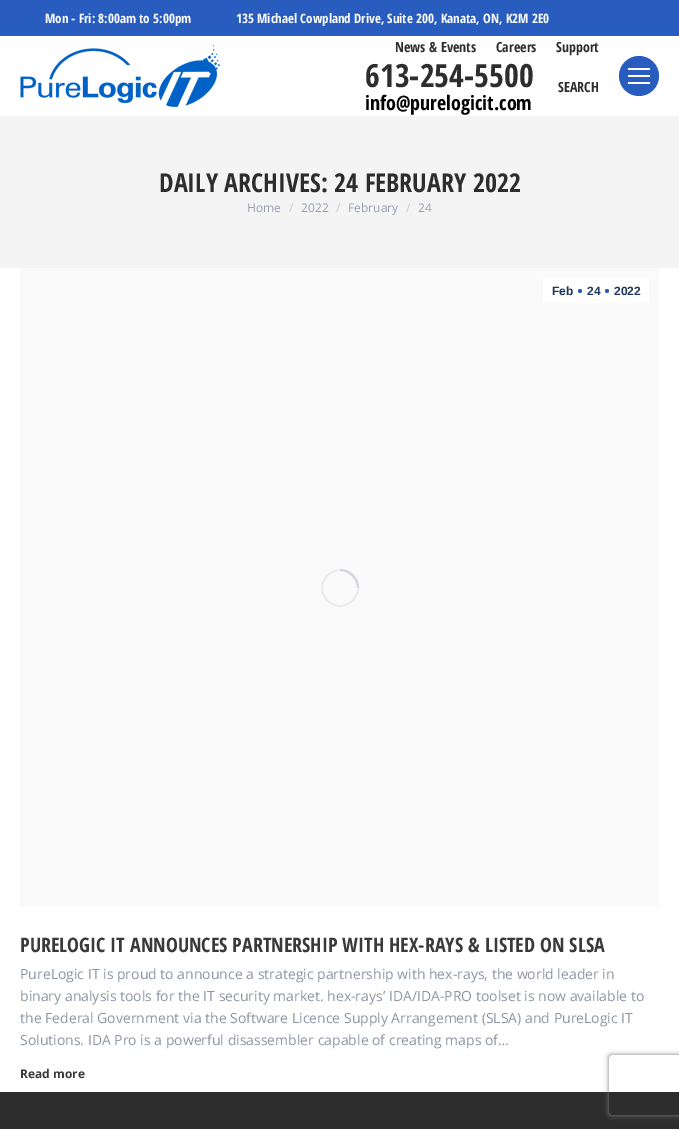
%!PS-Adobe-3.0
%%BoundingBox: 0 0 679 1129
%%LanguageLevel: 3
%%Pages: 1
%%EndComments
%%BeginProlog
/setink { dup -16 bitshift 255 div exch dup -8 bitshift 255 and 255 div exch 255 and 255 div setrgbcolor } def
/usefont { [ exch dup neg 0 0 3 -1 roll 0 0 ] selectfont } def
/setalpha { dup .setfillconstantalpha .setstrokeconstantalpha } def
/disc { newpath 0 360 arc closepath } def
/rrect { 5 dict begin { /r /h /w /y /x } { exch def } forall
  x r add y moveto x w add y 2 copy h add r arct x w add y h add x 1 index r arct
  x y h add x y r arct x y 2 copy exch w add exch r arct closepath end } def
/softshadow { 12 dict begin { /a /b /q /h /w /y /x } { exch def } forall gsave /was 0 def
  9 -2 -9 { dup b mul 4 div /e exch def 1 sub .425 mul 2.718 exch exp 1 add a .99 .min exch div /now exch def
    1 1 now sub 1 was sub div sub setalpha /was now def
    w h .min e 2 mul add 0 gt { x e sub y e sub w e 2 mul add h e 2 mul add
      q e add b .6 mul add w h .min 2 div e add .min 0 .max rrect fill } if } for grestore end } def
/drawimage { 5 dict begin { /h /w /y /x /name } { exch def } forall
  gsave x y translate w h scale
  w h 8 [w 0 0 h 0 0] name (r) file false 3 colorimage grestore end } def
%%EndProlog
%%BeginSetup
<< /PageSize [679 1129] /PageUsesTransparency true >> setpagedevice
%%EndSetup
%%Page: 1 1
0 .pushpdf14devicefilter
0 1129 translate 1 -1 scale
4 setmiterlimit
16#FFFFFF setink
0 0 679 1129 rectfill
16#285DBF setink
0 0 679 36 rectfill
/OpenSansCondensed-Bold 13 usefont
16#FFFFFF setink
45 23 moveto (Mon - Fri: 8:00am to 5:00pm) show
236 23 moveto (135 Michael Cowpland Drive, Suite 200, Kanata, ON, K2M 2E0) show
(img1.raw) 20 45 200 62 drawimage
/OpenSansCondensed-Bold 14 usefont
16#2D2D2D setink
[
    [(News & Events) 395 52]
    [(Careers) 496 52]
    [(Support) 556 52]
] { aload pop moveto show } forall
/OpenSansCondensed-Bold 32 usefont
365 87 moveto (613-254-5500) show
/OpenSansCondensed-Bold 20 usefont
16#000000 setink
365 110 moveto (info@purelogicit.com) show
/OpenSansCondensed-Bold 14 usefont
16#2D2D2D setink
558 92 moveto (SEARCH) show
16#285DBF setink
639 76 20 disc fill
[
    [628 68 22 2 16#FFFFFF]
    [628 75 22 2 16#FFFFFF]
    [628 82 22 2 16#FFFFFF]
    [0 116 679 152 16#F4F4F4]
] { aload pop setink rectfill } forall
/OpenSansCondensed-Bold 26 usefont
16#2D2D2D setink
159 192 moveto (DAILY ARCHIVES: 24 FEBRUARY 2022) show
/OpenSans-Regular 12 usefont
16#949FB2 setink
247 212 moveto (Home) show
16#C4CAD3 setink
289 212 moveto (/) show
16#949FB2 setink
301 212 moveto (2022) show
16#C4CAD3 setink
336 212 moveto (/) show
16#949FB2 setink
348 212 moveto (February) show
16#C4CAD3 setink
406 212 moveto (/) show
16#949FB2 setink
418 212 moveto (24) show
16#FAFAFB setink
20 268 639 639 rectfill
16#EBECEF setink
2 setlinewidth
340 588 18 disc stroke
0.25 setalpha
16#8C95A2 setink
358 588 moveto 358 578 350 570 340 570 curveto stroke
1 setalpha
16#FFFFFF setink
543 278 106 25 rectfill
/LiberationSans-Bold 12 usefont
16#1F365C setink
552 295 moveto (Feb) show
16#285DBF setink
580 291 2 disc fill
16#1F365C setink
587 295 moveto (24) show
16#285DBF setink
607 291 2 disc fill
16#1F365C setink
614 295 moveto (2022) show
/OpenSansCondensed-Bold 20 usefont
16#3A3A3A setink
20 952 moveto (PURELOGIC IT ANNOUNCES PARTNERSHIP WITH HEX-RAYS & LISTED ON SLSA) show
/OpenSans-Regular 14 usefont
16#8C95A2 setink
[
    [(PureLogic IT is proud to announce a strategic partnership with hex-rays, the world leader in) 20 979]
    [(binary analysis tools for the IT security market. hex-rays’ IDA/IDA-PRO toolset is now available to) 20 1001]
    [(the Federal Government via the Software Licence Supply Arrangement \(SLSA\) and PureLogic IT) 20 1023]
    [(Solutions. IDA Pro is a powerful disassembler capable of creating maps of…) 20 1045]
] { aload pop moveto show } forall
/OpenSans-Bold 12 usefont
16#3A3A3A setink
20 1078 moveto (Read more) show
16#2D2D2D setink
0 1092 679 37 rectfill
gsave
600 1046 moveto 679 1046 lineto 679 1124 lineto 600 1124 lineto closepath 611 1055 moveto 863 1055 lineto 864 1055 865 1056 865 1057 curveto 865 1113 lineto 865 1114 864 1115 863 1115 curveto 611 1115 lineto 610 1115 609 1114 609 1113 curveto 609 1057 lineto 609 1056 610 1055 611 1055 curveto closepath eoclip newpath
16#808080 setink
609 1055 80 60 2 2.5 1 softshadow
grestore
.poppdf14devicefilter showpage
%%EOF
